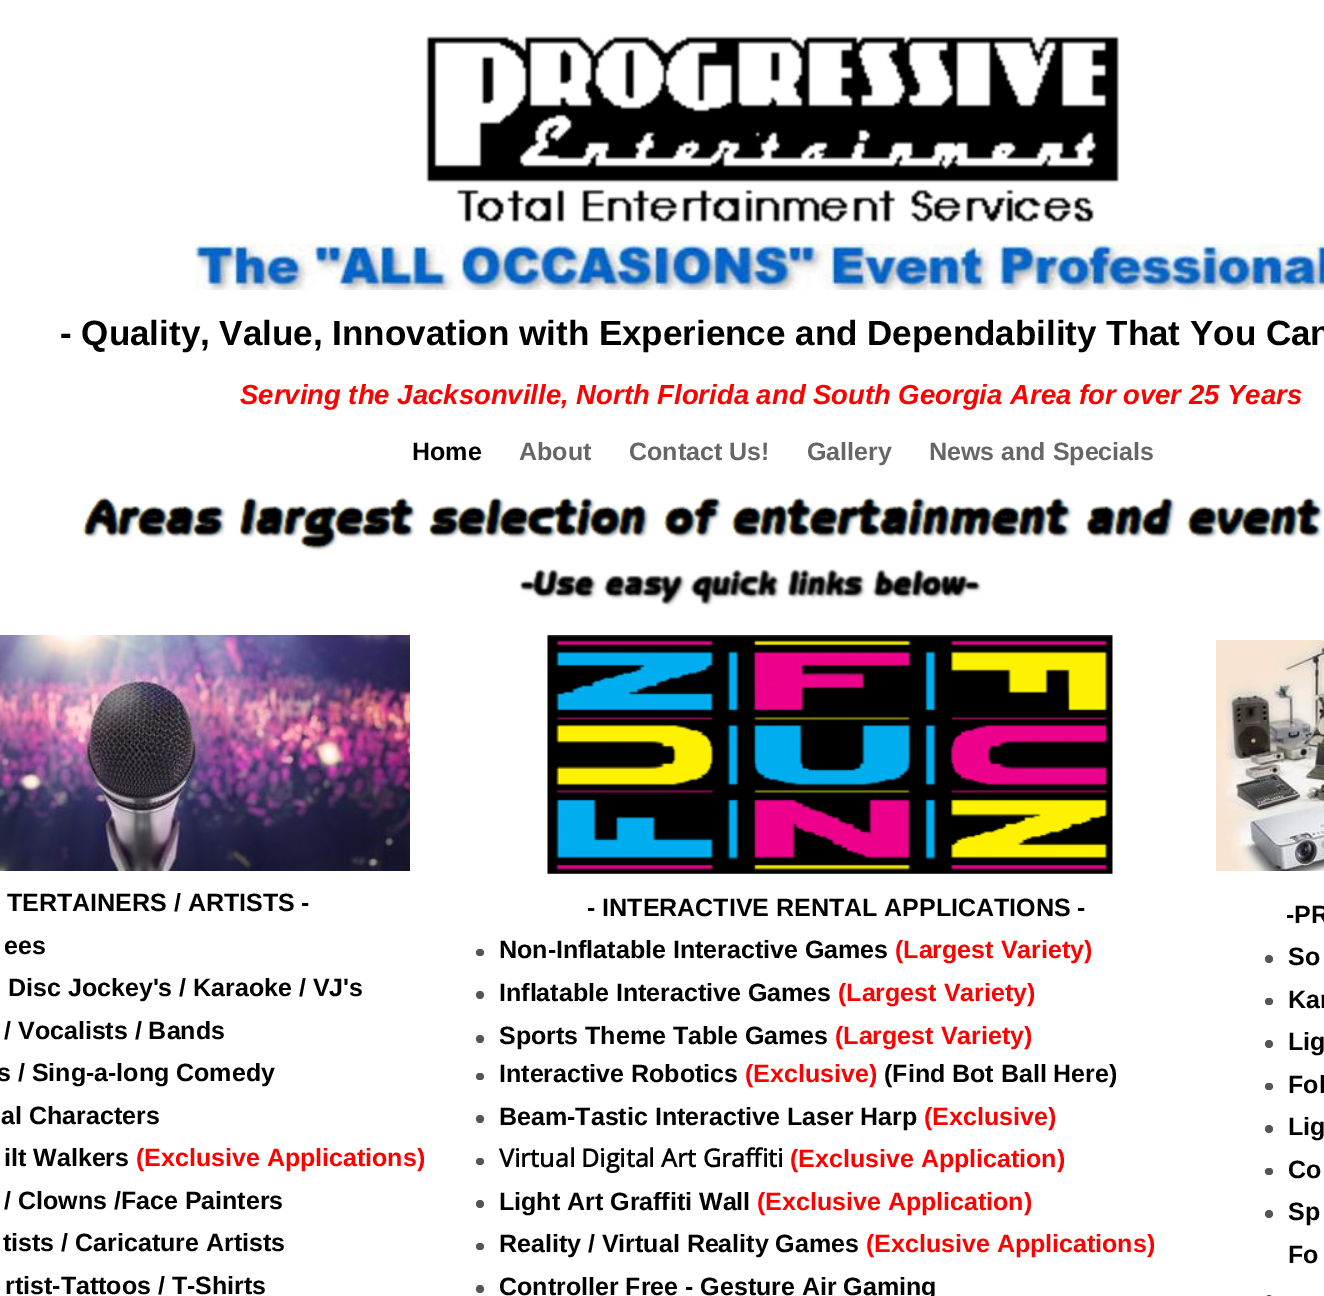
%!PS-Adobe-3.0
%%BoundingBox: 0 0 1324 1296
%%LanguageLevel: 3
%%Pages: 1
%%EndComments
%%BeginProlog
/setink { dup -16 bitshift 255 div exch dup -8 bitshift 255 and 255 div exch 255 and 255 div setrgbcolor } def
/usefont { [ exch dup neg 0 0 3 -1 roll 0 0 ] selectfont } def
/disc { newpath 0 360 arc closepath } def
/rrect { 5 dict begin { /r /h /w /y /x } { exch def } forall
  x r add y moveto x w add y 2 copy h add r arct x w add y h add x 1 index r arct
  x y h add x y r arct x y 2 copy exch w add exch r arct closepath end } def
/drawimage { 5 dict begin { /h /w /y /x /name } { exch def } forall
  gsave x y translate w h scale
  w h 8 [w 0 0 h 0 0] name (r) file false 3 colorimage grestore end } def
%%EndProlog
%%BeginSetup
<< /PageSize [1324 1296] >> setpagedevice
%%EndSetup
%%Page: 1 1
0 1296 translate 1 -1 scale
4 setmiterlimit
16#FFFFFF setink
0 0 1324 1296 rectfill
(img1.raw) 426 36 693 187 drawimage
(img2.raw) 195 244 1129 46 drawimage
/LiberationSans-Bold 35 usefont
16#000000 setink
60 345 moveto (- Quality, Value, Innovation with Experience and Dependability That You Can) show
/LiberationSans-BoldItalic 27.5 usefont
16#FF0000 setink
240 404 moveto (Serving the Jacksonville, North Florida and South Georgia Area for over 25 Years) show
/LiberationSans-Bold 25 usefont
16#000000 setink
412 460 moveto (Home) show
16#666666 setink
[
    [(About) 519 460]
    [(Contact Us!) 629 460]
    [(Gallery) 807 460]
    [(News and Specials) 929 460]
] { aload pop moveto show } forall
(img3.raw) 82 497 1242 54 drawimage
(img4.raw) 519 568 463 39 drawimage
(img5.raw) 0 635 410 236 drawimage
(img6.raw) 547 635 566 239 drawimage
(img7.raw) 1216 640 108 231 drawimage
16#000000 setink
[
    [(TERTAINERS / ARTISTS -) 7 911]
    [(ees) 4 954]
    [(Disc Jockey's / Karaoke / VJ's) 8 996]
    [(/ Vocalists / Bands) 4 1039]
    [(s / Sing-a-long Comedy) -3 1081]
    [(al Characters) 1 1124]
    [(ilt Walkers) 4 1166]
] { aload pop moveto show } forall
16#FF0000 setink
136 1166 moveto (\(Exclusive Applications\)) show
16#000000 setink
[
    [(/ Clowns /Face Painters) 4 1209]
    [(tists / Caricature Artists) 3 1251]
    [(rtist-Tattoos / T-Shirts) 5 1294]
    [(- INTERACTIVE RENTAL APPLICATIONS -) 587 916]
] { aload pop moveto show } forall
16#555555 setink
476 949 8 7 3.5 rrect fill
16#000000 setink
499 958 moveto (Non-Inflatable Interactive Games) show
16#FF0000 setink
895 958 moveto (\(Largest Variety\)) show
16#555555 setink
480 995 4 disc fill
16#000000 setink
499 1001 moveto (Inflatable Interactive Games) show
16#FF0000 setink
838 1001 moveto (\(Largest Variety\)) show
16#555555 setink
480 1039 4 disc fill
16#000000 setink
499 1044 moveto (Sports Theme Table Games) show
16#FF0000 setink
835 1044 moveto (\(Largest Variety\)) show
16#555555 setink
476 1073 8 7 3.5 rrect fill
16#000000 setink
499 1082 moveto (Interactive Robotics) show
16#FF0000 setink
745 1082 moveto (\(Exclusive\)) show
16#000000 setink
884 1082 moveto (\(Find Bot Ball Here\)) show
16#555555 setink
480 1119 4 disc fill
16#000000 setink
499 1125 moveto (Beam-Tastic Interactive Laser Harp) show
16#FF0000 setink
924 1125 moveto (\(Exclusive\)) show
16#555555 setink
476 1158 8 7 3.5 rrect fill
/OpenSans-Bold 25 usefont
16#000000 setink
499 1167 moveto (Virtual Digital Art Graffiti) show
/LiberationSans-Bold 25 usefont
16#FF0000 setink
790 1167 moveto (\(Exclusive Application\)) show
16#555555 setink
480 1204 4 disc fill
16#000000 setink
499 1210 moveto (Light Art Graffiti Wall) show
16#FF0000 setink
757 1210 moveto (\(Exclusive Application\)) show
16#555555 setink
476 1243 8 7 3.5 rrect fill
16#000000 setink
499 1252 moveto (Reality / Virtual Reality Games) show
16#FF0000 setink
866 1252 moveto (\(Exclusive Applications\)) show
16#555555 setink
480 1289 4 disc fill
16#000000 setink
499 1295 moveto (Controller Free - Gesture Air Gaming) show
1286 923 moveto (-PR) show
16#555555 setink
1269 959 4 disc fill
16#000000 setink
1288 965 moveto (So) show
16#555555 setink
1265 998 8 7 3.5 rrect fill
16#000000 setink
1288 1008 moveto (Kar) show
16#555555 setink
1269 1044 4 disc fill
16#000000 setink
1288 1050 moveto (Lig) show
16#555555 setink
1265 1083 8 7 3.5 rrect fill
16#000000 setink
1288 1093 moveto (Fol) show
16#555555 setink
1269 1129 4 disc fill
16#000000 setink
1288 1135 moveto (Lig) show
16#555555 setink
1265 1168 8 7 3.5 rrect fill
16#000000 setink
1288 1178 moveto (Co) show
16#555555 setink
1269 1214 4 disc fill
16#000000 setink
1288 1220 moveto (Sp) show
1288 1263 moveto (Fo) show
16#555555 setink
1269 1295 moveto 1271 1295 1273 1297 1273 1299 curveto 1273 1296 lineto 1265 1296 lineto 1265 1299 lineto 1265 1297 1267 1295 1269 1295 curveto closepath fill
showpage
%%EOF
